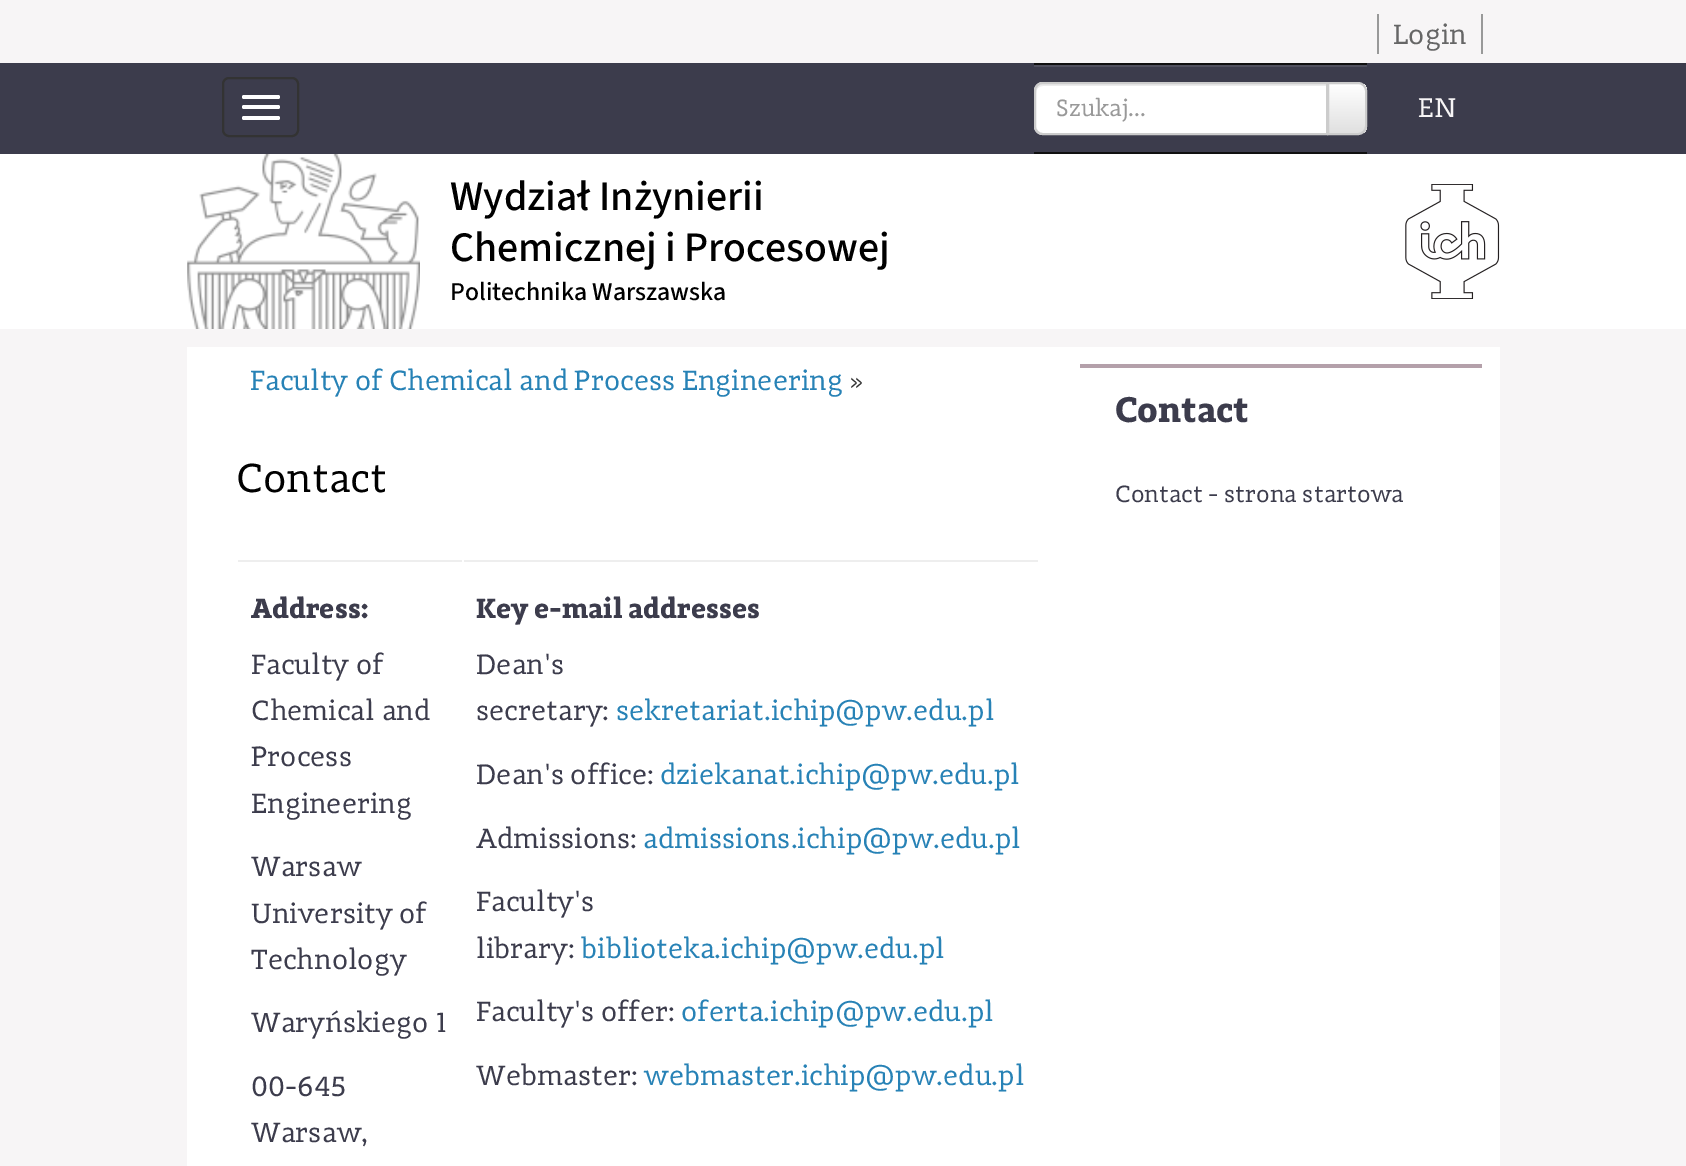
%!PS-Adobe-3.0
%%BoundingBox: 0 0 1686 1166
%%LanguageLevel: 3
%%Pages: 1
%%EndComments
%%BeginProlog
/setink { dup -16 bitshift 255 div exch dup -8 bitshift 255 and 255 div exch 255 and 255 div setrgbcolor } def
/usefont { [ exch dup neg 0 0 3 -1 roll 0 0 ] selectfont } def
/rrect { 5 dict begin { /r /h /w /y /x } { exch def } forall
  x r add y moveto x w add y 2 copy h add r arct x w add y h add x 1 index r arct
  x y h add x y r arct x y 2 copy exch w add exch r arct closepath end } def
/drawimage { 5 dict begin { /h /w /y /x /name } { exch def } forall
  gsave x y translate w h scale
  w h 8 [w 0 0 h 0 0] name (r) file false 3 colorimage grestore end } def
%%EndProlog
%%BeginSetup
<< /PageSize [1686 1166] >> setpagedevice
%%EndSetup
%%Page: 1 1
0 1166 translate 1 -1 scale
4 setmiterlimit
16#F7F5F6 setink
0 0 1686 1166 rectfill
16#999999 setink
1481 14 2 40 rectfill
1377 14 2 40 rectfill
/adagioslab-Regular 28.9 usefont
16#666666 setink
1393 44 moveto (Login) show
16#3C3C4C setink
0 63 1686 91 rectfill
16#333333 setink
2 setlinewidth
223 78 75 58 6 rrect stroke
16#FFFFFF setink
242 95 38 4 2 rrect fill
242 105 38 4 2 rrect fill
242 116 38 4 2 rrect fill
[
    [1034 65 333 2 16#50505E]
    [1034 63 333 2 16#101010]
    [1034 152 333 2 16#101010]
] { aload pop setink rectfill } forall
gsave
1327 82 moveto 1358 82 lineto 1363 82 1367 86 1367 91 curveto 1367 126 lineto 1367 131 1363 135 1358 135 curveto 1327 135 lineto closepath clip newpath
gsave 1329 84 moveto 1367 84 lineto 1367 133 lineto 1329 133 lineto closepath clip newpath
<< /ShadingType 2 /ColorSpace /DeviceRGB /Coords [1347 84 1347 133] /Extend [true true] /Function << /FunctionType 2 /Domain [0 1] /C0 [1 1 1] /C1 [0.878 0.878 0.878] /N 1 >> >> shfill grestore
grestore
16#CCCCCC setink
1328 83 moveto 1358 83 lineto 1362.5 83 1366 86.5 1366 91 curveto 1366 126 lineto 1366 130.5 1362.5 134 1358 134 curveto 1328 134 lineto closepath stroke
16#FFFFFF setink
1043 82 moveto 1328 82 lineto 1328 135 lineto 1043 135 lineto 1038 135 1034 131 1034 126 curveto 1034 91 lineto 1034 86 1038 82 1043 82 curveto closepath fill
16#ECECEC setink
1043 86 moveto 1326 86 lineto 1326 133 lineto 1327 133 lineto 1327 84 lineto 1043 84 lineto 1039 84 1036 87 1036 91 curveto 1036 93 lineto 1036 89 1039 86 1043 86 curveto closepath fill
16#CCCCCC setink
1043 83 moveto 1327 83 lineto 1327 134 lineto 1043 134 lineto 1038.5 134 1035 130.5 1035 126 curveto 1035 91 lineto 1035 86.5 1038.5 83 1043 83 curveto closepath stroke
/adagioslab-Regular 24.5 usefont
16#999999 setink
1056 116 moveto (Szukaj...) show
/adagioslab-Regular 28 usefont
16#F7F5F6 setink
1418 117 moveto (EN) show
16#FFFFFF setink
0 154 1686 175 rectfill
(img1.raw) 187 154 233 175 drawimage
/SourceSans3-Medium 42 usefont
16#000000 setink
450 210 moveto (Wydział Inżynierii) show
450 261 moveto (Chemicznej i Procesowej) show
/SourceSans3-Medium 25.75 usefont
450 300 moveto (Politechnika Warszawska) show
(img2.raw) 1405 184 95 115 drawimage
16#FFFFFF setink
187 347 1313 819 rectfill
/adagioslab-Regular 28.9 usefont
16#2782B6 setink
250 390 moveto (Faculty of Chemical and Process Engineering) show
/adagioslab-Regular 23 usefont
16#333333 setink
850 389 moveto (») show
/adagioslab-Regular 42 usefont
16#000000 setink
236 492 moveto (Contact) show
[
    [236 560 804 2 16#EEEEEE]
    [462 560 2 2 16#FFFFFF]
    [236 560 2 2 16#FFFFFF]
] { aload pop setink rectfill } forall
/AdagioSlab-Bold 28.9 usefont
16#3C3C4C setink
251 618 moveto (Address:) show
/adagioslab-Regular 28.9 usefont
[
    [(Faculty of) 251 674]
    [(Chemical and) 251 720]
    [(Process) 251 766]
    [(Engineering) 251 813]
    [(Warsaw) 251 876]
    [(University of) 251 923]
    [(Technology) 251 969]
    [(Waryńskiego 1) 251 1032]
    [(00-645) 251 1096]
    [(Warsaw,) 251 1142]
] { aload pop moveto show } forall
16#FFFFFF setink
1038 560 2 2 rectfill
/AdagioSlab-Bold 28.9 usefont
16#3C3C4C setink
476 618 moveto (Key e-mail addresses) show
/adagioslab-Regular 28.9 usefont
476 674 moveto (Dean's) show
476 720 moveto (secretary:) show
16#2782B6 setink
616 720 moveto (sekretariat.ichip@pw.edu.pl) show
16#3C3C4C setink
476 784 moveto (Dean's office:) show
16#2782B6 setink
660 784 moveto (dziekanat.ichip@pw.edu.pl) show
16#3C3C4C setink
476 848 moveto (Admissions:) show
16#2782B6 setink
643 848 moveto (admissions.ichip@pw.edu.pl) show
16#3C3C4C setink
476 911 moveto (Faculty's) show
476 958 moveto (library:) show
16#2782B6 setink
581 958 moveto (biblioteka.ichip@pw.edu.pl) show
16#3C3C4C setink
476 1021 moveto (Faculty's offer:) show
16#2782B6 setink
681 1021 moveto (oferta.ichip@pw.edu.pl) show
16#3C3C4C setink
476 1085 moveto (Webmaster:) show
16#2782B6 setink
644 1085 moveto (webmaster.ichip@pw.edu.pl) show
16#B4A0AA setink
1080 364 402 4 rectfill
/AdagioSlab-Bold 37 usefont
16#3C3C4C setink
1115 422 moveto (Contact) show
/adagioslab-Regular 24.4 usefont
1115 502 moveto (Contact - strona startowa) show
showpage
%%EOF
